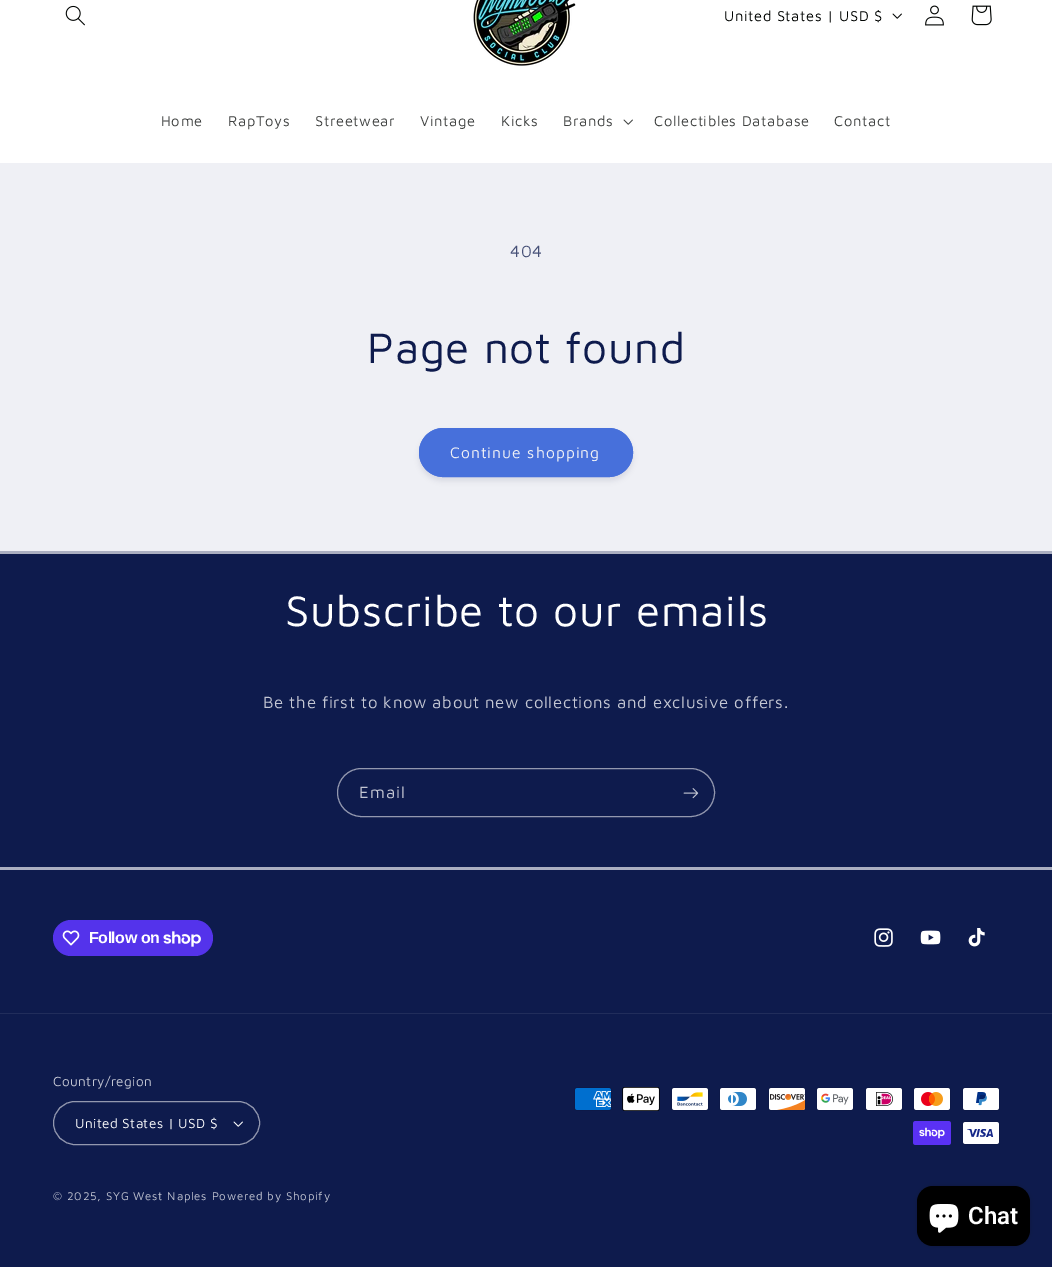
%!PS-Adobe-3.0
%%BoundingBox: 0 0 1052 1267
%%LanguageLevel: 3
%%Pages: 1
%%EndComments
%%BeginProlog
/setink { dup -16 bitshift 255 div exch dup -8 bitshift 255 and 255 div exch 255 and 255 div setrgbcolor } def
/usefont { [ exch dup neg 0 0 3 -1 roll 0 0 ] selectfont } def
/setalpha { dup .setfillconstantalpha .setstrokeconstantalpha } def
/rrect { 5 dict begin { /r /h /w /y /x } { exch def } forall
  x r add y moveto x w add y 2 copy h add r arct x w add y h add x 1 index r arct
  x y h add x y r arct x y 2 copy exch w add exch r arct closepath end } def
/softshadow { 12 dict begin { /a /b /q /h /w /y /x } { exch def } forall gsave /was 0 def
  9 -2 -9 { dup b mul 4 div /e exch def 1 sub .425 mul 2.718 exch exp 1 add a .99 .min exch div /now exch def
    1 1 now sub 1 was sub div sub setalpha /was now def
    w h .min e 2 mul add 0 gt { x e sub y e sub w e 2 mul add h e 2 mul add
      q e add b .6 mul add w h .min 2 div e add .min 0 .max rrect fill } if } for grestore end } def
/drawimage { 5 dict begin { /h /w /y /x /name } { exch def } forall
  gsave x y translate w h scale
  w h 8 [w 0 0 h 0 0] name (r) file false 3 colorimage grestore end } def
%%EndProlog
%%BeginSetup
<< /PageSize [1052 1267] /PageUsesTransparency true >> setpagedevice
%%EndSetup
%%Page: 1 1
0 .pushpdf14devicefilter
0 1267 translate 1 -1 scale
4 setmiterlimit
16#EFF0F5 setink
0 0 1052 1267 rectfill
16#FFFFFF setink
0 0 1052 163 rectfill
(img1.raw) 65 5 20 21 drawimage
(img2.raw) 473 0 103 66 drawimage
/MavenPro-Regular 14.75 usefont
16#000301 setink
724 21 moveto 0.63 0 (United States | USD $) ashow
(img3.raw) 892 13 10 6 drawimage
(img4.raw) 925 5 19 21 drawimage
(img5.raw) 971 5 21 21 drawimage
16#404241 setink
161 126 moveto 0.63 0 (Home) ashow
228 126 moveto 0.63 0 (RapToys) ashow
315 126 moveto 0.63 0 (Streetwear) ashow
420 126 moveto 0.63 0 (Vintage) ashow
501 126 moveto 0.63 0 (Kicks) ashow
563 126 moveto 0.63 0 (Brands) ashow
(img6.raw) 623 119 10 6 drawimage
654 126 moveto 0.63 0 (Collectibles Database) ashow
834 126 moveto 0.63 0 (Contact) ashow
/MavenPro-Regular 16.8 usefont
16#465077 setink
510 257 moveto 0.63 0 (404) ashow
/MavenPro-Regular 44 usefont
16#0E1B4D setink
367 363 moveto 0.7 0 (Page not found) ashow
419 432 214 49 24.5 2.5 0.1 softshadow
16#4770DB setink
419 428 214 49 24.5 rrect fill
419.5 428.5 213 48 24 rrect stroke
/MavenPro-Regular 15.75 usefont
16#EFF0F5 setink
450 458 moveto 1 0 (Continue shopping) ashow
[
    [0 554 1052 313 16#0E1B4D]
    [0 551 1052 3 16#ABAFC1]
    [0 867 1052 3 16#ABAFC1]
] { aload pop setink rectfill } forall
/MavenPro-Regular 44 usefont
16#FFFFFF setink
285 626 moveto 0.7 0 (Subscribe to our emails) ashow
/MavenPro-Regular 16.8 usefont
16#C3C6D3 setink
263 708 moveto 0.63 0 (Be the first to know about new collections and exclusive offers.) ashow
16#9398AF setink
337.5 768.5 377 48 24 rrect stroke
16#C3C6D3 setink
359 798 moveto 1 0 (Email) ashow
(img7.raw) 683 788 16 11 drawimage
16#0E1B4D setink
0 870 1052 397 rectfill
16#5433EB setink
53 920 160 36 18 rrect fill
(img8.raw) 62 930 18 16 drawimage
/LiberationSans-Bold 16 usefont
16#FFFFFF setink
89 943 moveto -0.5 0 (Follow on) ashow
(img9.raw) 163 931 38 16 drawimage
(img10.raw) 874 928 19 19 drawimage
(img11.raw) 920 930 21 15 drawimage
(img12.raw) 968 928 17 19 drawimage
16#212D5B setink
0 1013 1052 1 rectfill
/MavenPro-Regular 13.6 usefont
16#C3C6D3 setink
53 1086 moveto 0.4 0 (Country/region) ashow
(img13.raw) 233 1121 10 6 drawimage
16#9398AF setink
53.5 1101.5 206 43 21.5 rrect stroke
16#FFFFFF setink
75 1128 moveto 0.4 0 (United States | USD $) ashow
(img14.raw) 574 1087 38 24 drawimage
(img15.raw) 622 1087 38 24 drawimage
(img16.raw) 671 1087 38 24 drawimage
(img17.raw) 719 1087 38 24 drawimage
(img18.raw) 768 1087 38 24 drawimage
(img19.raw) 816 1087 38 24 drawimage
(img20.raw) 865 1087 38 24 drawimage
(img21.raw) 913 1087 38 24 drawimage
(img22.raw) 962 1087 38 24 drawimage
(img23.raw) 913 1121 38 24 drawimage
(img24.raw) 962 1121 38 24 drawimage
/MavenPro-Regular 11.55 usefont
16#C3C6D3 setink
53 1200 moveto 0.75 0 (© 2025, SYG West Naples Powered by Shopify) ashow
16#000000 setink
917 1186 113 60 16 2.5 0.15 softshadow
917 1186 113 60 16 rrect fill
(img25.raw) 929 1204 30 29 drawimage
/Roboto-SemiBold 24 usefont
16#FFFFFF setink
968 1224 moveto (Chat) show
.poppdf14devicefilter showpage
%%EOF
